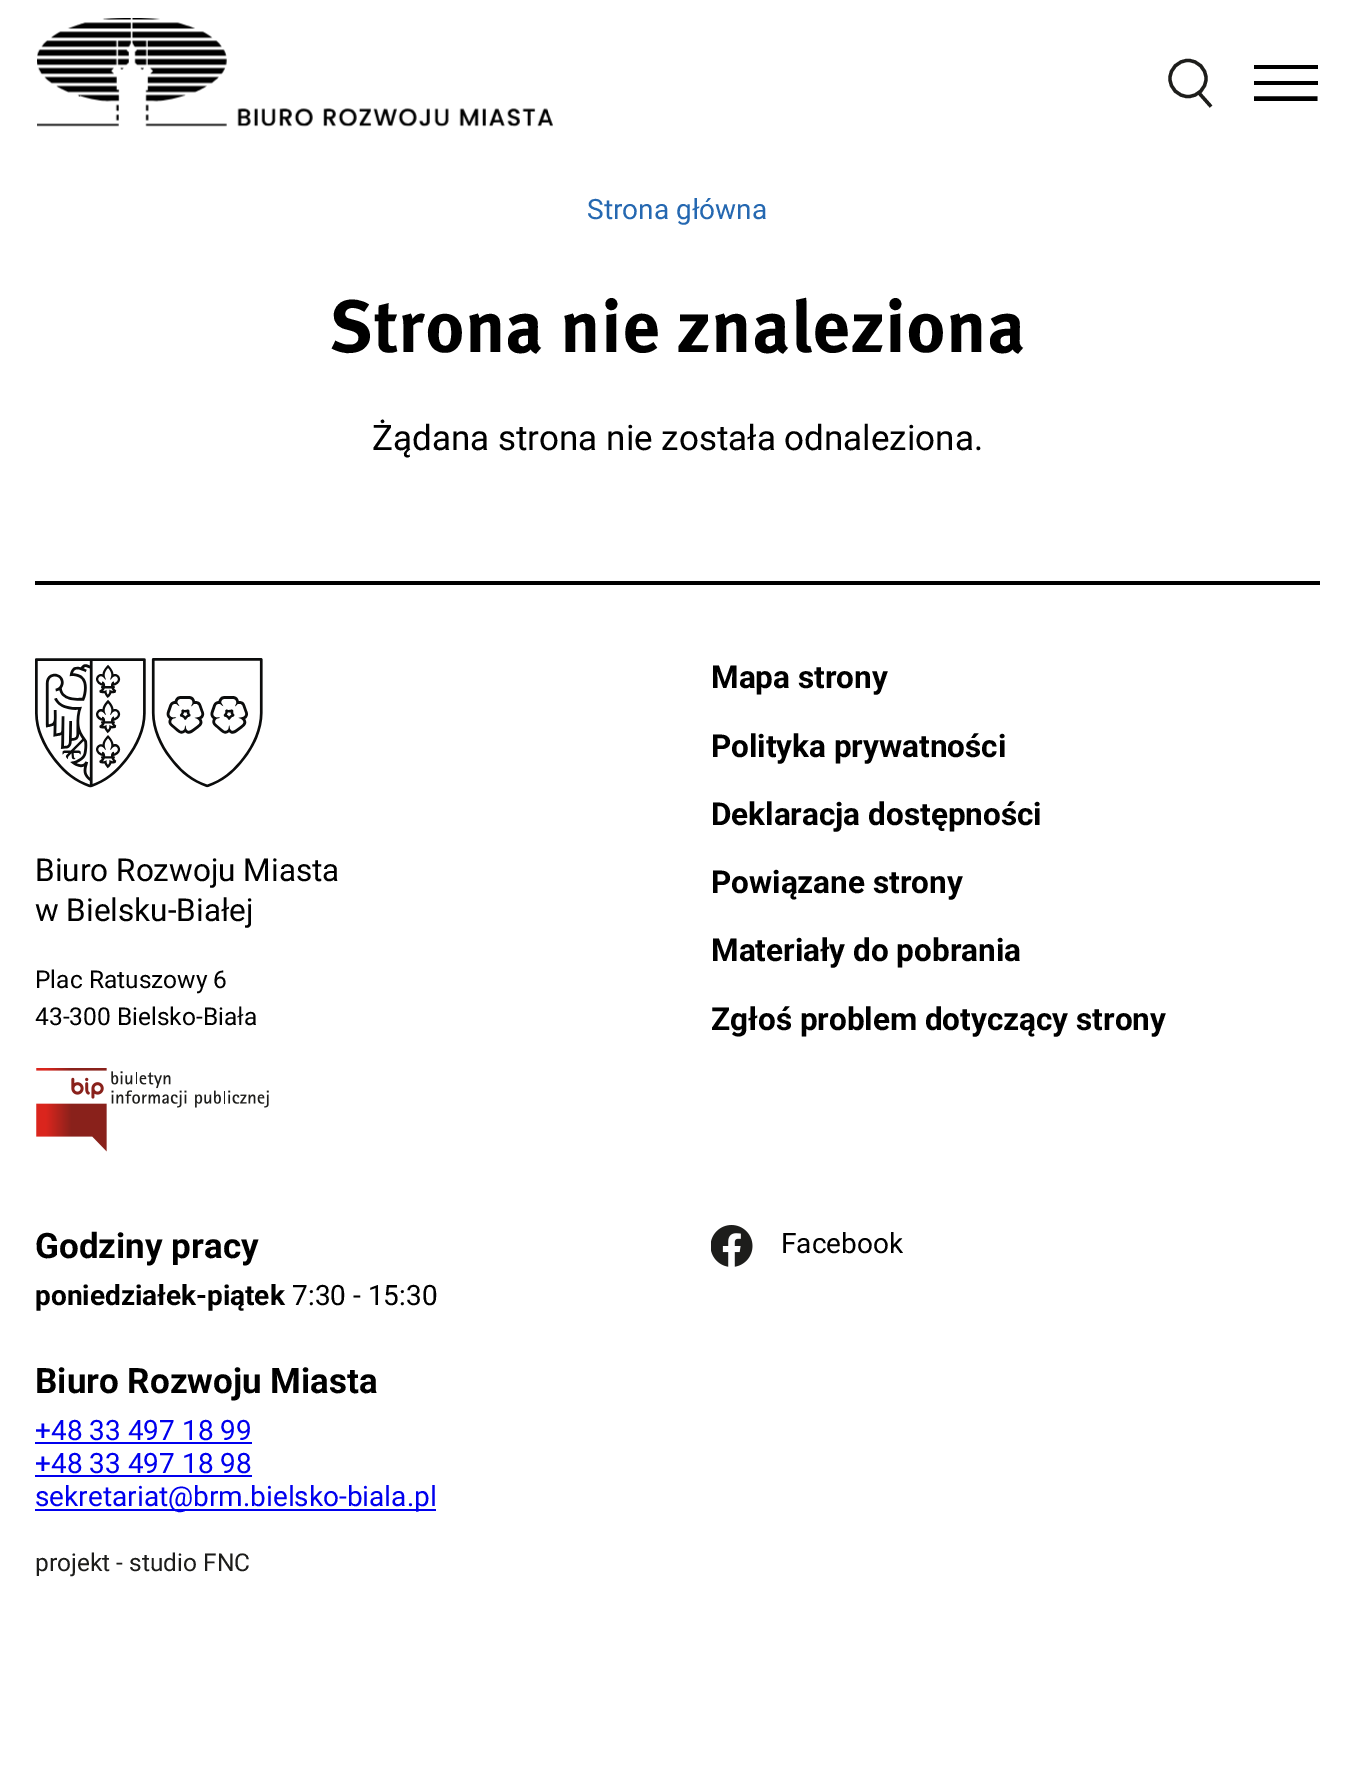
%!PS-Adobe-3.0
%%BoundingBox: 0 0 1353 1791
%%LanguageLevel: 3
%%Pages: 1
%%EndComments
%%BeginProlog
/setink { dup -16 bitshift 255 div exch dup -8 bitshift 255 and 255 div exch 255 and 255 div setrgbcolor } def
/usefont { [ exch dup neg 0 0 3 -1 roll 0 0 ] selectfont } def
/disc { newpath 0 360 arc closepath } def
/drawimage { 5 dict begin { /h /w /y /x /name } { exch def } forall
  gsave x y translate w h scale
  w h 8 [w 0 0 h 0 0] name (r) file false 3 colorimage grestore end } def
%%EndProlog
%%BeginSetup
<< /PageSize [1353 1791] >> setpagedevice
%%EndSetup
%%Page: 1 1
0 1791 translate 1 -1 scale
4 setmiterlimit
16#FFFFFF setink
0 0 1353 1791 rectfill
(img1.raw) 37 18 516 109 drawimage
16#1D1D1B setink
3.3 setlinewidth
1188 78.5 18 disc stroke
1199 93 moveto 1211 106.5 lineto stroke
16#000000 setink
1254 65 64 4 rectfill
1254 81 64 4 rectfill
4.4 setlinewidth
1254 98.5 moveto 1317.5 98.5 lineto stroke
/Roboto-Regular 28 usefont
16#2568B1 setink
587 219 moveto (Strona główna) show
/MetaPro-Bold 73.5 usefont
16#000000 setink
329 352 moveto (Strona nie znaleziona) show
/Roboto-Regular 35 usefont
372 450 moveto (Żądana strona nie została odnaleziona.) show
35 581 1285 4 rectfill
(img2.raw) 35 658 228 130 drawimage
/Roboto-Regular 31.5 usefont
35 881 moveto (Biuro Rozwoju Miasta) show
35 921 moveto (w Bielsku-Białej) show
/Roboto-Regular 24.5 usefont
35 988 moveto (Plac Ratuszowy 6) show
35 1025 moveto (43-300 Bielsko-Biała) show
(img3.raw) 36 1068 233 84 drawimage
/Roboto-Bold 31.5 usefont
[
    [(Mapa strony) 711 688]
    [(Polityka prywatności) 711 757]
    [(Deklaracja dostępności) 711 825]
    [(Powiązane strony) 711 893]
    [(Materiały do pobrania) 711 961]
    [(Zgłoś problem dotyczący strony) 711 1030]
] { aload pop moveto show } forall
/Roboto-Bold 35 usefont
35 1258 moveto (Godziny pracy) show
/Roboto-Bold 28 usefont
35 1305 moveto (poniedziałek-piątek) show
/Roboto-Regular 28 usefont
292 1305 moveto (7:30 - 15:30) show
/Roboto-Bold 35 usefont
35 1393 moveto (Biuro Rozwoju Miasta) show
/Roboto-Regular 28 usefont
16#0000EE setink
35 1440 moveto (+48 33 497 18 99) show
35 1442 217 2 rectfill
35 1473 moveto (+48 33 497 18 98) show
35 1475 217 2 rectfill
35 1509 401 2 rectfill
35 1506 moveto (sekretariat@brm.bielsko-biala.pl) show
(img4.raw) 711 1225 42 42 drawimage
16#000000 setink
781 1253 moveto (Facebook) show
/Roboto-Regular 24.5 usefont
16#1D1D1B setink
35 1571 moveto (projekt - studio FNC) show
showpage
%%EOF
